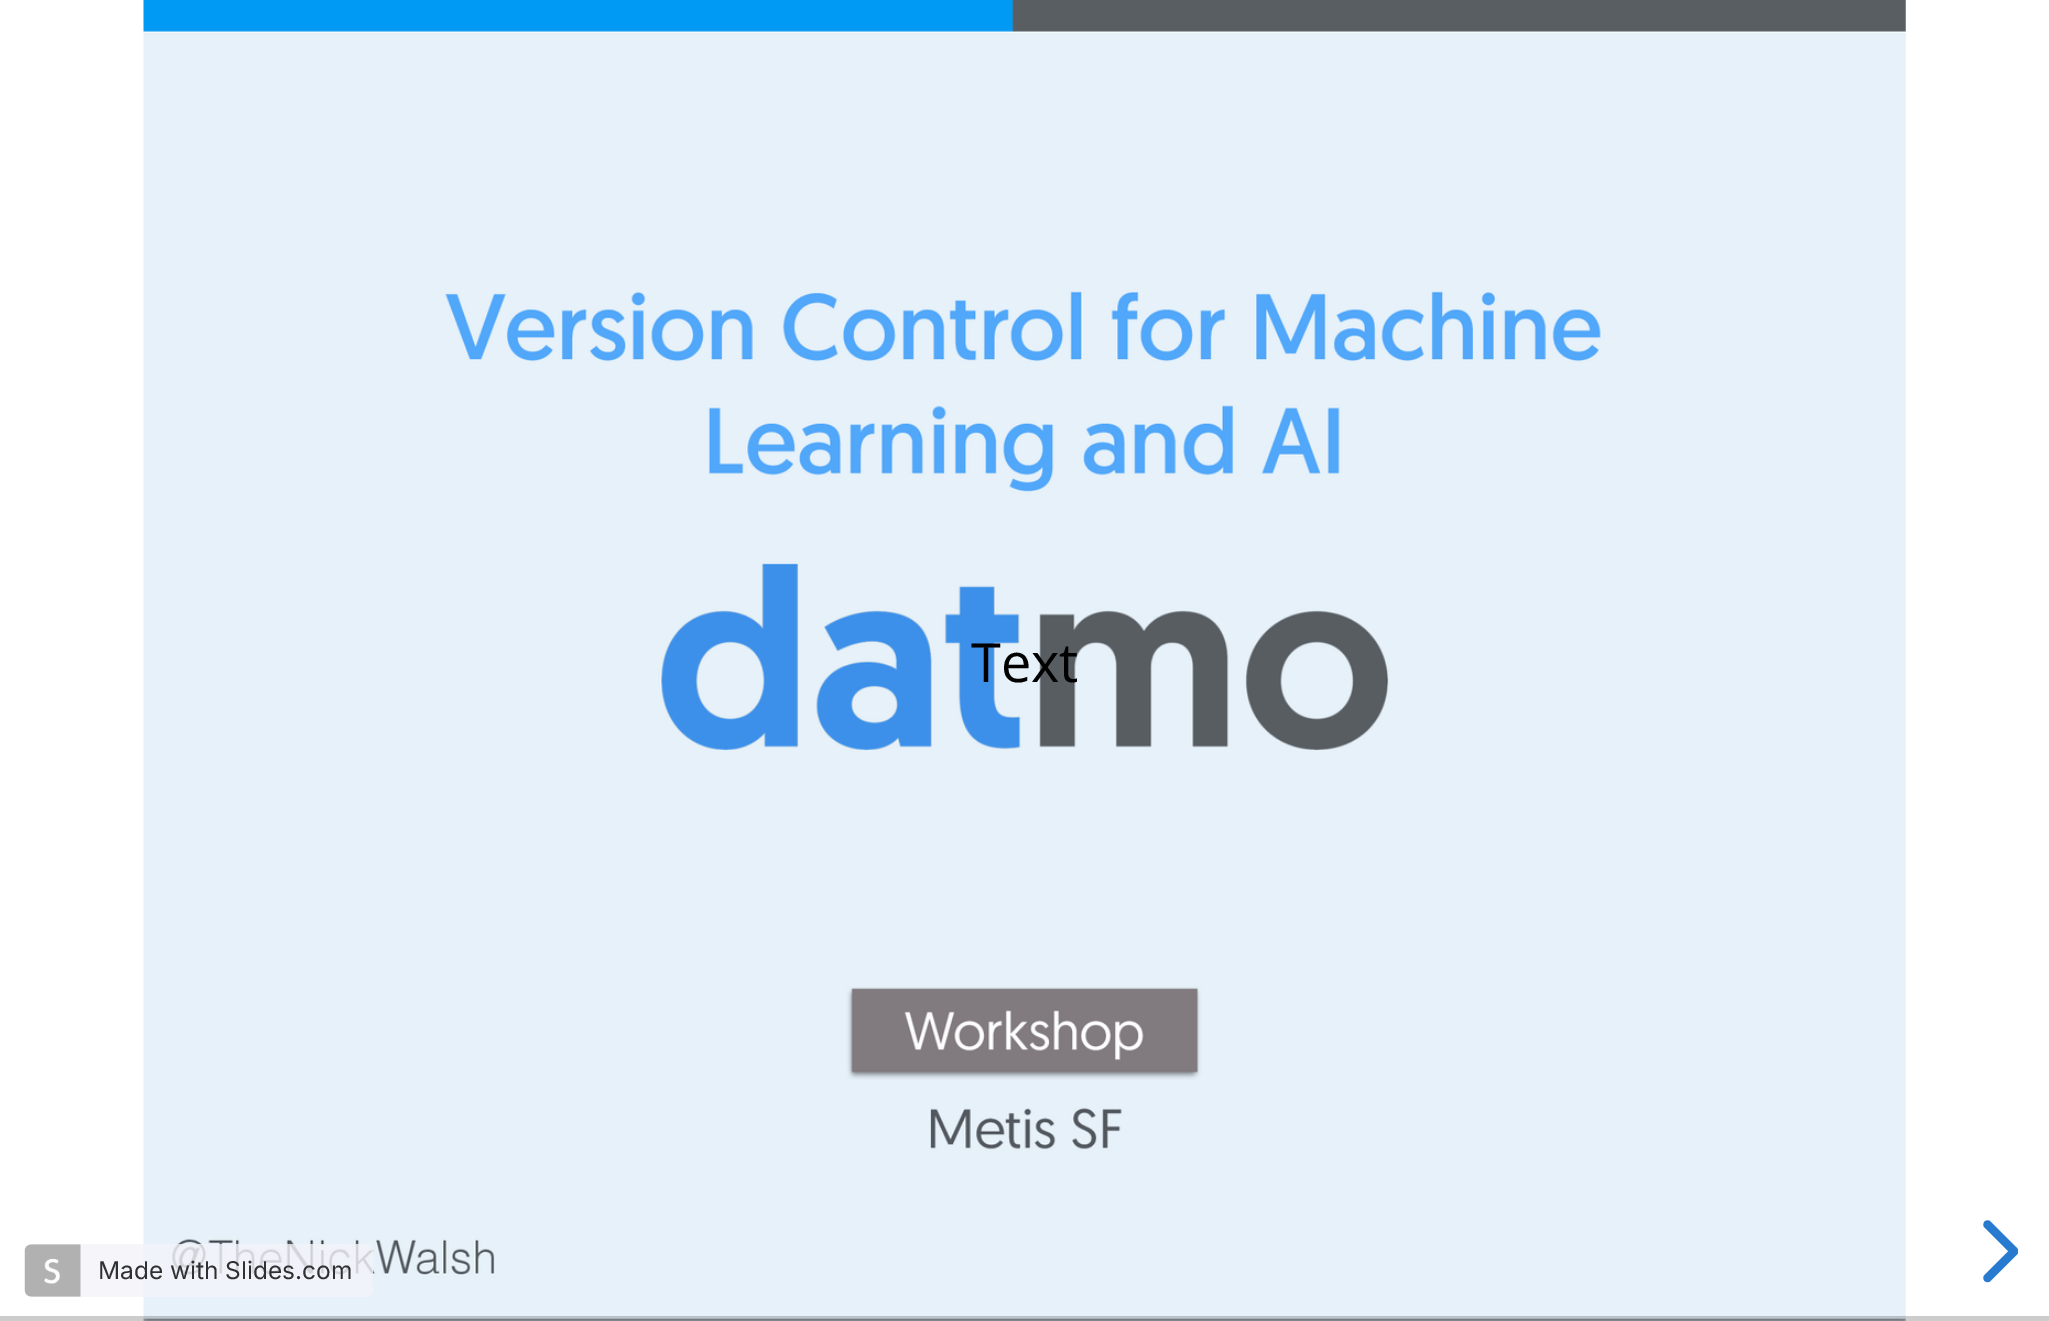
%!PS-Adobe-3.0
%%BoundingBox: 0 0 2049 1321
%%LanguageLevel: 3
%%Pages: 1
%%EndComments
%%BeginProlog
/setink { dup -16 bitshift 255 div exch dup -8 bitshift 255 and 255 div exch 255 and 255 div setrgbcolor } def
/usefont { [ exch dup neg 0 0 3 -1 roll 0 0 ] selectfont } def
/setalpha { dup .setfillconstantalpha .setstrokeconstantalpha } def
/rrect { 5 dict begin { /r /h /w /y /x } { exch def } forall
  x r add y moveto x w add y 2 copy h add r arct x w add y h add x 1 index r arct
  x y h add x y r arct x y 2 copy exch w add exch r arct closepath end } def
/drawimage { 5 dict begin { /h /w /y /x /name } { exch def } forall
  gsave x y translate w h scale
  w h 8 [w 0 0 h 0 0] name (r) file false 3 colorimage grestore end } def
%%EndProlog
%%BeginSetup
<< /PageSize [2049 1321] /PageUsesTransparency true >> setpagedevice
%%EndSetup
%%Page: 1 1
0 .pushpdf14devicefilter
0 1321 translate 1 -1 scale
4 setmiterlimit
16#FFFFFF setink
0 0 2049 1321 rectfill
(img1.raw) 143 0 1763 1321 drawimage
/OpenSans-Regular 54 usefont
16#000000 setink
971 682 moveto (Text) show
16#287AD1 setink
2010.5 1253.5 moveto 1984.5 1227.5 lineto 1983 1226 1983 1223.5 1984.5 1221.5 curveto 1986.5 1220 1989 1220 1990.5 1221.5 curveto 2016.5 1247.5 lineto 2018.5 1249 2018.5 1252 2016.5 1253.5 curveto 2015 1255.5 2012 1255.5 2010.5 1253.5 curveto closepath fill
2016.5 1255 moveto 1990.5 1281 lineto 1989 1282.5 1986.5 1282.5 1984.5 1281 curveto 1983 1279 1983 1276.5 1984.5 1275 curveto 2010.5 1249 lineto 2012 1247 2015 1247 2016.5 1249 curveto 2018.5 1250.5 2018.5 1253.5 2016.5 1255 curveto closepath fill
0.2 setalpha
16#000000 setink
0 1316 2049 5 rectfill
0.8 setalpha
16#F2F3F9 setink
25 1244 348 53 7 rrect fill
1 setalpha
(img2.raw) 24 1244 57 53 drawimage
/Inter-Regular 24.5 usefont
16#2F3031 setink
98 1279 moveto (Made with Slides.com) show
.poppdf14devicefilter showpage
%%EOF
